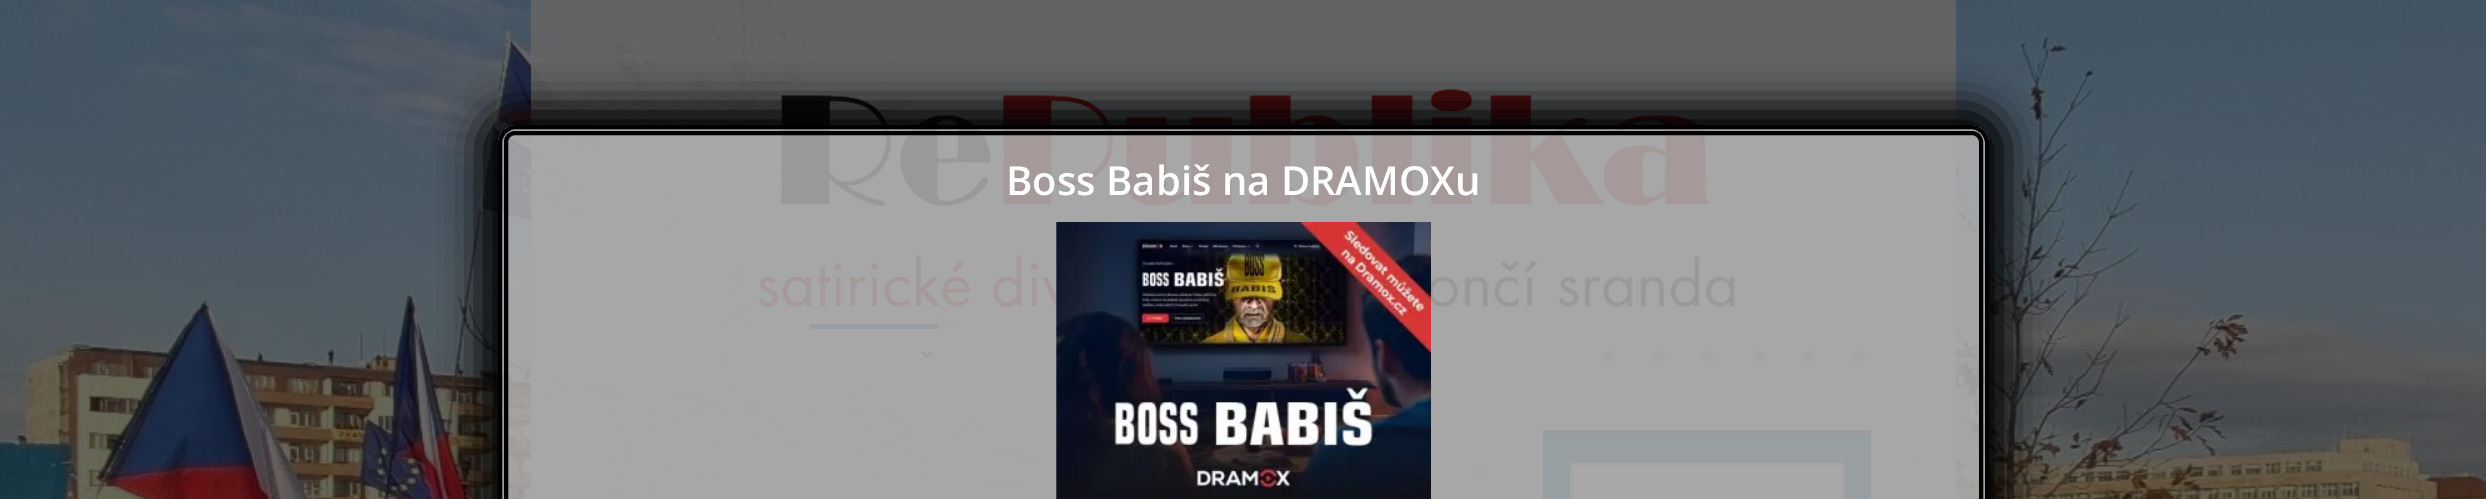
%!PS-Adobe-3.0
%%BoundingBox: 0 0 2486 499
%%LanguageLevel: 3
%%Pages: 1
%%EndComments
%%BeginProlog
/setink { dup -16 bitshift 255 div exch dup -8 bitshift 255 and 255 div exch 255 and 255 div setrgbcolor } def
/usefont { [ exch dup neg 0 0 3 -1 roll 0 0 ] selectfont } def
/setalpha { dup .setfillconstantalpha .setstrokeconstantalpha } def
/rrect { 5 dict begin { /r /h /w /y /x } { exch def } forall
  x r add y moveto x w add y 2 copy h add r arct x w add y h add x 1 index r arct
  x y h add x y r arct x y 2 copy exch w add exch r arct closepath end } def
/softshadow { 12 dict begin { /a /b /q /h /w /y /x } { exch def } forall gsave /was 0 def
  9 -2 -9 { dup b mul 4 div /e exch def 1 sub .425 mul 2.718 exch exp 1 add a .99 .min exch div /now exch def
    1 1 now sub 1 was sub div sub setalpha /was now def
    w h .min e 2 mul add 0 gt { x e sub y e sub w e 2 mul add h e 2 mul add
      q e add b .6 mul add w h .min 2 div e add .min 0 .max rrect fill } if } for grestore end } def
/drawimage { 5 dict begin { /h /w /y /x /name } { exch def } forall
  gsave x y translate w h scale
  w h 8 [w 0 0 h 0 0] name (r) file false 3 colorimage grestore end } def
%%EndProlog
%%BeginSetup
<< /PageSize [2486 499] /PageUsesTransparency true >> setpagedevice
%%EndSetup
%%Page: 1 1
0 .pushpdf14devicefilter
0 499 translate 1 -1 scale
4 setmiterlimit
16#FFFFFF setink
0 0 2486 499 rectfill
(img1.raw) 0 0 2486 499 drawimage
0.93 setalpha
16#646464 setink
531 0 1425 499 rectfill
1 setalpha
(img2.raw) 758 89 977 219 drawimage
16#575757 setink
615 325 1256 1 rectfill
16#07314A setink
810 324 128 5 rectfill
(img3.raw) 921 351 12 7 drawimage
(img4.raw) 1599 347 19 17 drawimage
(img5.raw) 1649 347 19 17 drawimage
(img6.raw) 1699 347 19 17 drawimage
(img7.raw) 1749 347 19 17 drawimage
(img8.raw) 1799 347 19 17 drawimage
(img9.raw) 1849 347 19 17 drawimage
1543 435 328 64 rectfill
16#161230 setink
1543 430 328 5 rectfill
16#666666 setink
1571.5 464.5 moveto 1842.5 464.5 lineto 1842.5 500.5 lineto 1571.5 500.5 lineto closepath gsave fill grestore
16#525252 setink
3 setlinewidth
stroke
gsave
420 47 moveto 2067 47 lineto 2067 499 lineto 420 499 lineto closepath 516 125 moveto 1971 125 lineto 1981 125 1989 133 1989 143 curveto 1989 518 lineto 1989 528 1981 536 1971 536 curveto 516 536 lineto 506 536 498 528 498 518 curveto 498 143 lineto 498 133 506 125 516 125 curveto closepath eoclip newpath
16#020202 setink
478 105 1531 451 38 19 1 softshadow
grestore
0.83 setalpha
16#B5B5B5 setink
516 125 moveto 1971 125 lineto 1981 125 1989 133 1989 143 curveto 1989 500 lineto 498 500 lineto 498 143 lineto 498 133 506 125 516 125 curveto closepath fill
1 setalpha
16#000000 setink
4 setlinewidth
500 127 1487 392 16 rrect stroke
506 133 1475 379 9 rrect stroke
/OpenSans-SemiBold 40 usefont
16#FFFFFF setink
1006 195 moveto (Boss Babiš na DRAMOXu) show
(img10.raw) 1056 222 375 277 drawimage
.poppdf14devicefilter showpage
%%EOF
